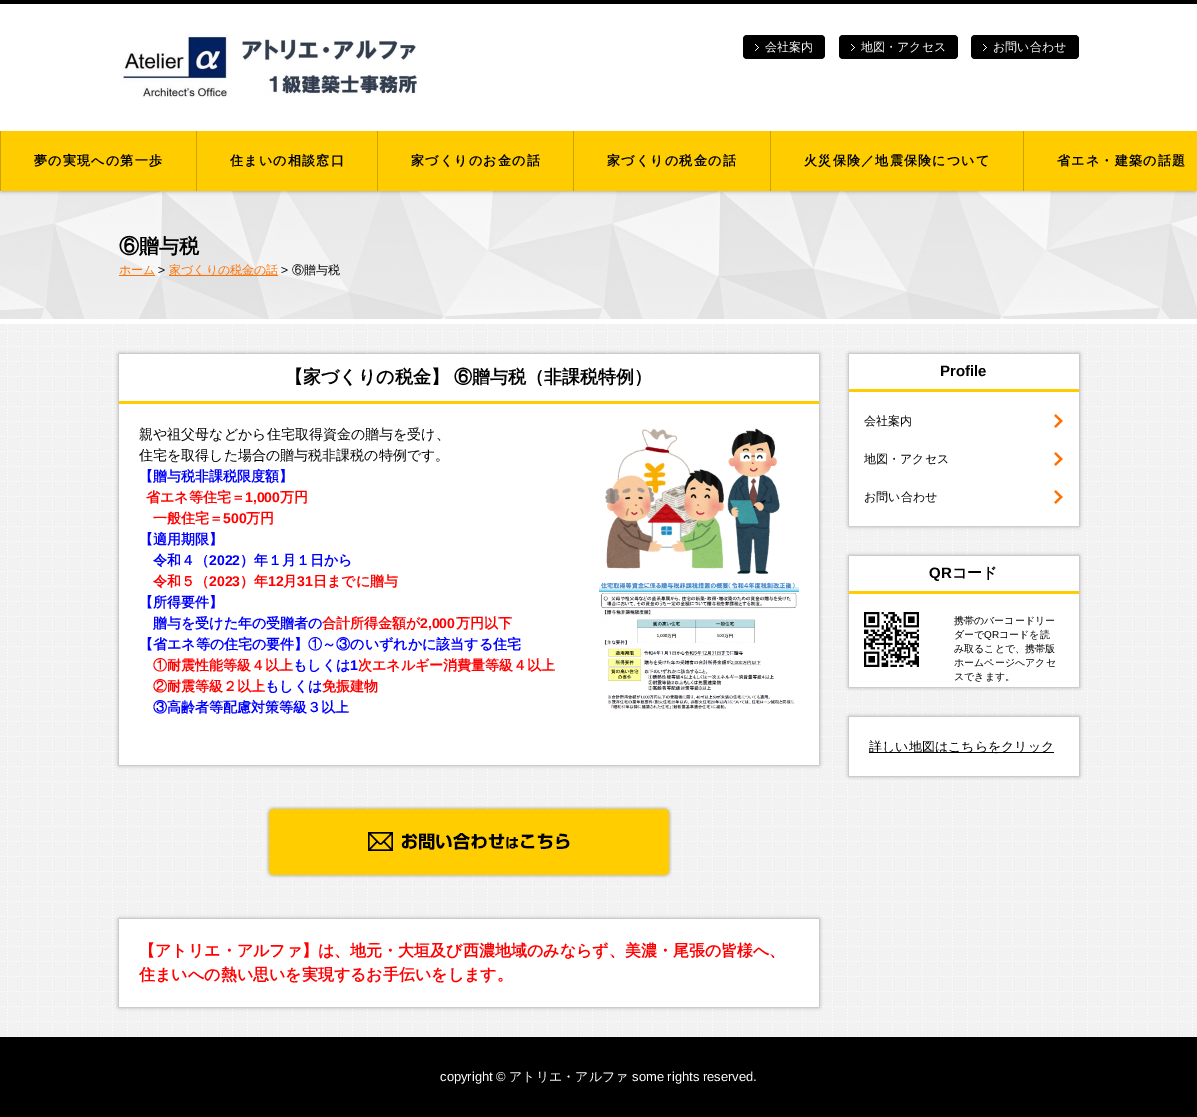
%!PS-Adobe-3.0
%%BoundingBox: 0 0 1197 1117
%%LanguageLevel: 3
%%Pages: 1
%%EndComments
%%BeginProlog
/setink { dup -16 bitshift 255 div exch dup -8 bitshift 255 and 255 div exch 255 and 255 div setrgbcolor } def
/usefont { [ exch dup neg 0 0 3 -1 roll 0 0 ] selectfont } def
/setalpha { dup .setfillconstantalpha .setstrokeconstantalpha } def
/rrect { 5 dict begin { /r /h /w /y /x } { exch def } forall
  x r add y moveto x w add y 2 copy h add r arct x w add y h add x 1 index r arct
  x y h add x y r arct x y 2 copy exch w add exch r arct closepath end } def
/softshadow { 12 dict begin { /a /b /q /h /w /y /x } { exch def } forall gsave /was 0 def
  9 -2 -9 { dup b mul 4 div /e exch def 1 sub .425 mul 2.718 exch exp 1 add a .99 .min exch div /now exch def
    1 1 now sub 1 was sub div sub setalpha /was now def
    w h .min e 2 mul add 0 gt { x e sub y e sub w e 2 mul add h e 2 mul add
      q e add b .6 mul add w h .min 2 div e add .min 0 .max rrect fill } if } for grestore end } def
/drawimage { 5 dict begin { /h /w /y /x /name } { exch def } forall
  gsave x y translate w h scale
  w h 8 [w 0 0 h 0 0] name (r) file false 3 colorimage grestore end } def
%%EndProlog
%%BeginSetup
<< /PageSize [1197 1117] /PageUsesTransparency true >> setpagedevice
%%EndSetup
%%Page: 1 1
0 .pushpdf14devicefilter
0 1117 translate 1 -1 scale
4 setmiterlimit
16#FFFFFF setink
0 0 1197 1117 rectfill
16#000000 setink
0 0 1197 4 rectfill
(img1.raw) 121 34 297 64 drawimage
743 35 82 24 4 rrect fill
(img2.raw) 755 44 4 7 drawimage
/WenQuanYiZenHei-Medium 12 usefont
16#FFFFFF setink
765 51 moveto (会社案内) show
16#000000 setink
839 35 119 24 4 rrect fill
(img2.raw) 851 44 4 7 drawimage
16#FFFFFF setink
861 51 moveto (地図・アクセス) show
16#000000 setink
971 35 108 24 4 rrect fill
(img2.raw) 983 44 4 7 drawimage
16#FFFFFF setink
993 51 moveto (お問い合わせ) show
(img3.raw) 0 191 1197 128 drawimage
16#000000 setink
2 135 1193 56 0 2 0.4 softshadow
[
    [1 131 1196 60 16#FFCC00]
    [0 131 1 60 16#CCA300]
    [196 131 1 60 16#CCA300]
] { aload pop setink rectfill } forall
/WenQuanYiZenHei-Bold 13 usefont
16#000000 setink
34 165 moveto 1.25 0 (夢の実現への第一歩) ashow
16#CCA300 setink
377 131 1 60 rectfill
16#000000 setink
230 165 moveto 1.25 0 (住まいの相談窓口) ashow
16#CCA300 setink
573 131 1 60 rectfill
16#000000 setink
411 165 moveto 1.25 0 (家づくりのお金の話) ashow
16#CCA300 setink
770 131 1 60 rectfill
16#000000 setink
607 165 moveto 1.25 0 (家づくりの税金の話) ashow
16#CCA300 setink
1023 131 1 60 rectfill
16#000000 setink
804 165 moveto 1.25 0 (火災保険／地震保険について) ashow
1057 165 moveto 1.25 0 (省エネ・建築の話題) ashow
/WenQuanYiZenHei-Bold 20 usefont
119 253 moveto (⑥贈与税) show
16#FF7000 setink
119 275 36 1 rectfill
/WenQuanYiZenHei-Medium 12 usefont
119 274 moveto (ホーム) show
/LiberationSans-Regular 12 usefont
16#000000 setink
158 274 moveto (>) show
16#FF7000 setink
169 275 109 1 rectfill
/WenQuanYiZenHei-Medium 12 usefont
169 274 moveto (家づくりの税金の話) show
/LiberationSans-Regular 12 usefont
16#000000 setink
281 274 moveto (>) show
/WenQuanYiZenHei-Medium 12 usefont
292 274 moveto (⑥贈与税) show
(img4.raw) 0 324 1197 713 drawimage
119 354 700 411 0 2 0.4 softshadow
16#FFFFFF setink
119 354 700 411 rectfill
16#FFCC00 setink
119 401 700 3 rectfill
/WenQuanYiZenHei-Bold 18 usefont
16#000000 setink
285 383 moveto (【家づくりの税金】 ⑥贈与税（非課税特例）) show
/WenQuanYiZenHei-Medium 14 usefont
139 439 moveto (親や祖父母などから住宅取得資金の贈与を受け、) show
139 460 moveto (住宅を取得した場合の贈与税非課税の特例です。) show
/WenQuanYiZenHei-Bold 14 usefont
16#0000FF setink
139 481 moveto (【贈与税非課税限度額】) show
16#FF0000 setink
146 502 moveto (省エネ等住宅＝) show
/LiberationSans-Bold 14 usefont
245 502 moveto (1,000) show
/WenQuanYiZenHei-Bold 14 usefont
280 502 moveto (万円) show
153 523 moveto (一般住宅＝) show
/LiberationSans-Bold 14 usefont
223 523 moveto (500) show
/WenQuanYiZenHei-Bold 14 usefont
246 523 moveto (万円) show
16#0000FF setink
139 544 moveto (【適用期限】) show
153 565 moveto (令和４（) show
/LiberationSans-Bold 14 usefont
209 565 moveto (2022) show
/WenQuanYiZenHei-Bold 14 usefont
240 565 moveto (）年１月１日から) show
16#FF0000 setink
153 586 moveto (令和５（) show
/LiberationSans-Bold 14 usefont
209 586 moveto (2023) show
/WenQuanYiZenHei-Bold 14 usefont
240 586 moveto (）年) show
/LiberationSans-Bold 14 usefont
268 586 moveto (12) show
/WenQuanYiZenHei-Bold 14 usefont
283 586 moveto (月) show
/LiberationSans-Bold 14 usefont
297 586 moveto (31) show
/WenQuanYiZenHei-Bold 14 usefont
313 586 moveto (日までに贈与) show
16#0000FF setink
139 607 moveto (【所得要件】) show
153 628 moveto (贈与を受けた年の受贈者の) show
16#FF0000 setink
322 628 moveto (合計所得金額が) show
/LiberationSans-Bold 14 usefont
420 628 moveto (2,000) show
/WenQuanYiZenHei-Bold 14 usefont
456 628 moveto (万円以下) show
16#0000FF setink
139 649 moveto (【省エネ等の住宅の要件】①～③のいずれかに該当する住宅) show
16#FF0000 setink
153 670 moveto (①耐震性能等級４以上) show
16#0000FF setink
293 670 moveto (もしくは) show
/LiberationSans-Bold 14 usefont
350 670 moveto (1) show
/WenQuanYiZenHei-Bold 14 usefont
16#FF0000 setink
358 670 moveto (次エネルギー消費量等級４以上) show
153 691 moveto (②耐震等級２以上) show
16#0000FF setink
265 691 moveto (もしくは) show
16#FF0000 setink
322 691 moveto (免振建物) show
16#0000FF setink
153 712 moveto (③高齢者等配慮対策等級３以上) show
(img5.raw) 605 428 175 146 drawimage
(img6.raw) 599 582 200 127 drawimage
(img7.raw) 266 806 406 72 drawimage
16#000000 setink
119 919 700 88 0 2 0.4 softshadow
16#FFFFFF setink
119 919 700 88 rectfill
/WenQuanYiZenHei-Bold 16 usefont
16#FF0000 setink
139 956 moveto (【アトリエ・アルファ】は、地元・大垣及び西濃地域のみならず、美濃・尾張の皆様へ、) show
139 980 moveto (住まいへの熱い思いを実現するお手伝いをします。) show
16#000000 setink
849 354 230 172 0 2 0.4 softshadow
16#FFFFFF setink
849 354 230 172 rectfill
16#FFCC00 setink
849 389 230 3 rectfill
/LiberationSans-Bold 15 usefont
16#000000 setink
940 376 moveto (Profile) show
(img8.raw) 1054 414 9 14 drawimage
/WenQuanYiZenHei-Medium 12 usefont
864 425 moveto (会社案内) show
(img8.raw) 1054 452 9 14 drawimage
864 463 moveto (地図・アクセス) show
(img8.raw) 1054 490 9 14 drawimage
864 501 moveto (お問い合わせ) show
849 556 230 131 0 2 0.4 softshadow
16#FFFFFF setink
849 556 230 131 rectfill
16#FFCC00 setink
849 591 230 3 rectfill
/LiberationSans-Bold 15 usefont
16#000000 setink
929 578 moveto (QR) show
/WenQuanYiZenHei-Bold 15 usefont
952 578 moveto (コード) show
(img9.raw) 864 612 55 55 drawimage
/WenQuanYiZenHei-Medium 10 usefont
954 624 moveto (携帯のバーコードリー) show
954 638 moveto (ダーで) show
/LiberationSans-Regular 10 usefont
984 638 moveto (QR) show
/WenQuanYiZenHei-Medium 10 usefont
[
    [(コードを読) 999 638]
    [(み取ることで、携帯版) 954 652]
    [(ホームページへアクセ) 954 666]
    [(スできます。) 954 680]
] { aload pop moveto show } forall
849 717 230 59 0 2 0.4 softshadow
16#FFFFFF setink
849 717 230 59 rectfill
16#000000 setink
869 752 185 1 rectfill
/WenQuanYiZenHei-Medium 13 usefont
869 751 moveto (詳しい地図はこちらをクリック) show
0 1037 1197 80 rectfill
/LiberationSans-Regular 13 usefont
16#FFFFFF setink
440 1081 moveto (copyright ©) show
/WenQuanYiZenHei-Medium 13 usefont
509 1081 moveto (アトリエ・アルファ) show
/LiberationSans-Regular 13 usefont
632 1081 moveto (some rights reserved.) show
.poppdf14devicefilter showpage
%%EOF
